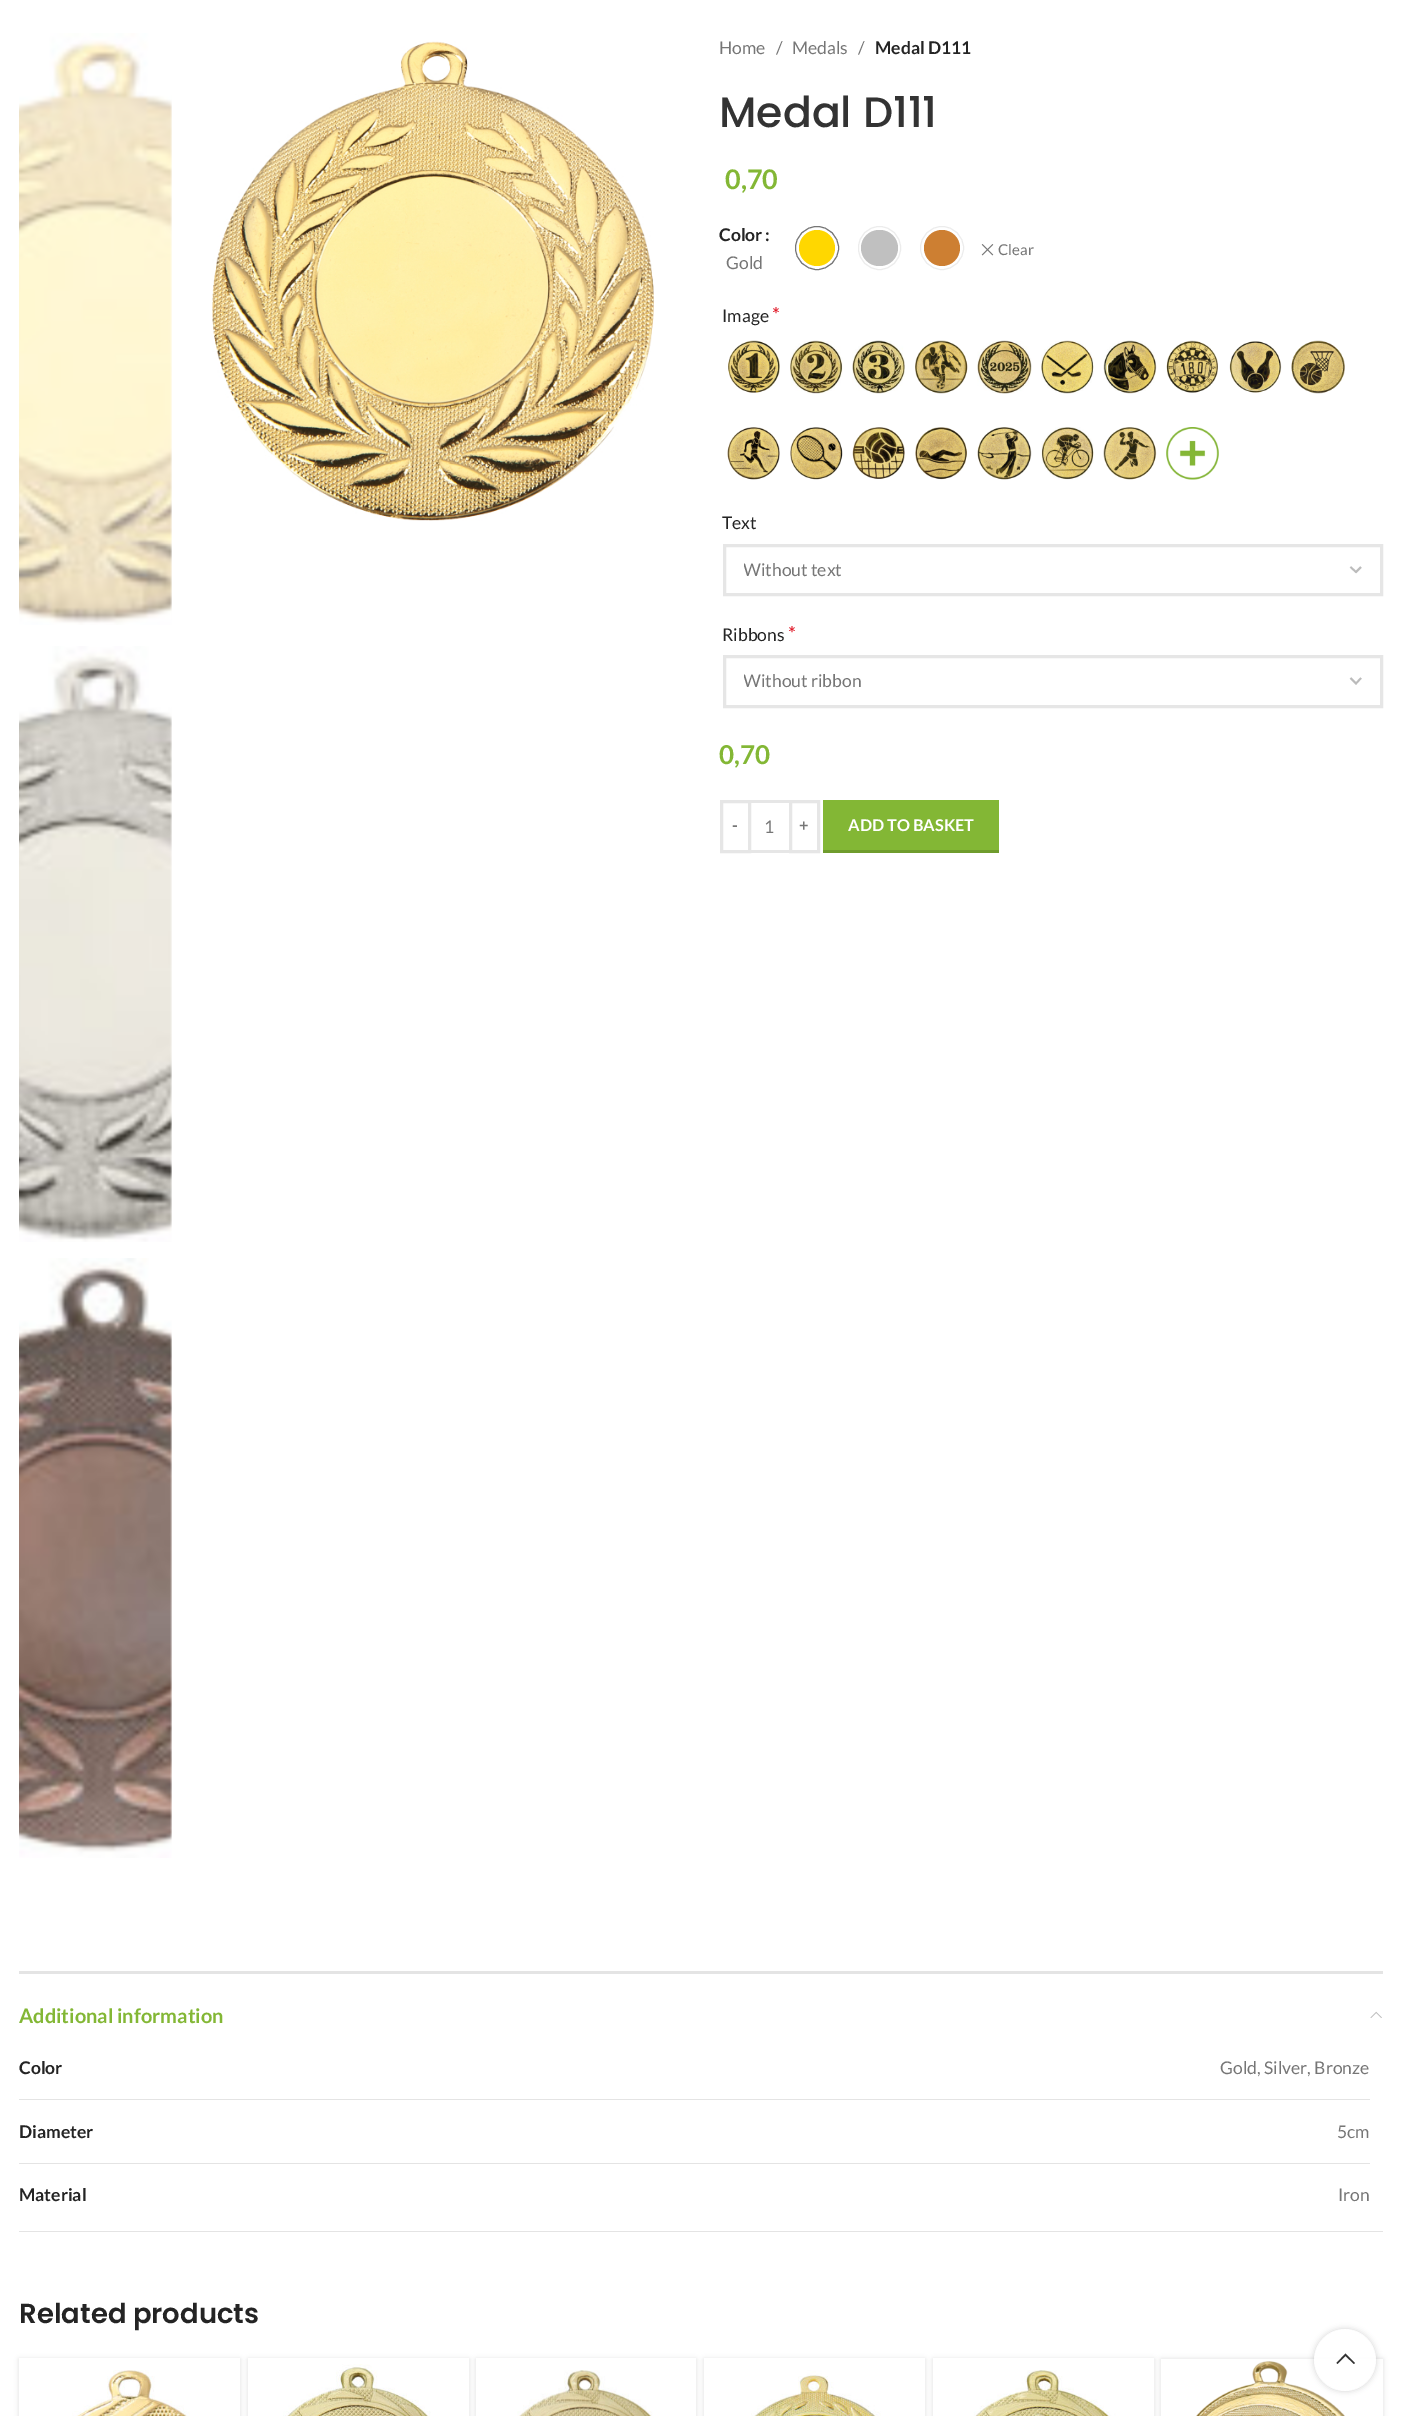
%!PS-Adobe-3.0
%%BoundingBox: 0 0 1401 2416
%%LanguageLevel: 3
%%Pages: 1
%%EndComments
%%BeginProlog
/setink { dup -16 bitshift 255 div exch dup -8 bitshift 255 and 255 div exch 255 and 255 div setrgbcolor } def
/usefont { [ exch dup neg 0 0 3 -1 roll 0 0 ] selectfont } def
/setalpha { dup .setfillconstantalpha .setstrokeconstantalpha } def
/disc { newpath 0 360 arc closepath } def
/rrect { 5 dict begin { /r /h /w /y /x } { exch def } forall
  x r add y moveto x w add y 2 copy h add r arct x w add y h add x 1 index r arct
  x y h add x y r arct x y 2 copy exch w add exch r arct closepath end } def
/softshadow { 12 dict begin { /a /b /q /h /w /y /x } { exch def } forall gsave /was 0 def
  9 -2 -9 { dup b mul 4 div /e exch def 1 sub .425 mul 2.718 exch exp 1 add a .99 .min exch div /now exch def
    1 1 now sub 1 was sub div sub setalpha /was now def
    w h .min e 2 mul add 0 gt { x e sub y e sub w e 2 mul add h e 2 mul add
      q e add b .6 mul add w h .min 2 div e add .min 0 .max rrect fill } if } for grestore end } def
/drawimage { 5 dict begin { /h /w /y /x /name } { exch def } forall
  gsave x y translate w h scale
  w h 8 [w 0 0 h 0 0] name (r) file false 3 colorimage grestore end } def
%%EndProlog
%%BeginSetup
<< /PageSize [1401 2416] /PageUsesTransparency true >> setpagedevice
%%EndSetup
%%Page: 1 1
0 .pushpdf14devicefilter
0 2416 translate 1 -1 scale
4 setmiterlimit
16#FFFFFF setink
0 0 1401 2416 rectfill
(img1.raw) 19 33 153 592 drawimage
(img2.raw) 19 646 153 596 drawimage
(img3.raw) 19 1258 153 600 drawimage
(img4.raw) 212 41 442 480 drawimage
/Lato-Regular 17.5 usefont
16#767676 setink
[
    [(Home) 719 54]
    [(/) 776 54]
    [(Medals) 792 54]
    [(/) 858 54]
] { aload pop moveto show } forall
/Lato-Bold 17.5 usefont
16#242424 setink
875 54 moveto (Medal D111) show
/Poppins-Medium 42.5 usefont
16#333333 setink
719 127 moveto (Medal D111) show
/Lato-Bold 27 usefont
16#83B735 setink
725 189 moveto (0,70) show
/Lato-Bold 17.5 usefont
16#242424 setink
719 241 moveto (Color) show
765 241 moveto (:) show
/Lato-Regular 17.5 usefont
16#767676 setink
726 269 moveto (Gold) show
817 248 21.5 disc stroke
16#FFD700 setink
817 248 18 disc fill
16#ECECEC setink
858.5 226.5 42 43 21 rrect stroke
16#C0C0C0 setink
861 230 37 36 18 rrect fill
16#ECECEC setink
942 248 21.5 disc stroke
16#CD7F32 setink
942 248 18 disc fill
(img5.raw) 981 244 13 12 drawimage
/Lato-Regular 15 usefont
16#767676 setink
998 255 moveto (Clear) show
/Lato-Regular 17.5 usefont
16#242424 setink
722 322 moveto (Image) show
/Lato-Regular 20 usefont
16#E01020 setink
772 322 moveto (*) show
(img6.raw) 728 340 52 53 drawimage
(img7.raw) 790 340 53 54 drawimage
(img8.raw) 852 340 53 54 drawimage
(img9.raw) 915 340 53 54 drawimage
(img10.raw) 977 340 55 54 drawimage
(img11.raw) 1041 340 53 54 drawimage
(img12.raw) 1103 340 54 54 drawimage
(img13.raw) 1166 340 52 53 drawimage
(img14.raw) 1229 341 53 52 drawimage
(img15.raw) 1291 340 54 54 drawimage
(img16.raw) 727 427 53 53 drawimage
(img17.raw) 790 427 53 53 drawimage
(img18.raw) 852 427 53 52 drawimage
(img19.raw) 915 427 52 53 drawimage
(img20.raw) 977 427 55 53 drawimage
(img21.raw) 1041 427 53 53 drawimage
(img22.raw) 1103 427 54 53 drawimage
(img23.raw) 1166 427 53 53 drawimage
/Lato-Regular 17.5 usefont
16#242424 setink
722 529 moveto (Text) show
16#BBBBBB setink
1.8 setlinewidth
1350.5 567 moveto 1356 572 lineto 1361 567 lineto stroke
16#E6E6E6 setink
3 setlinewidth
724.5 545.5 657 49 rectstroke
gsave
744 555 599 29 rectclip
16#767676 setink
743 576 moveto (Without text) show
grestore
16#242424 setink
722 641 moveto (Ribbons) show
/Lato-Regular 20 usefont
16#E01020 setink
788 641 moveto (*) show
16#BBBBBB setink
1.8 setlinewidth
1350.5 678 moveto 1356 683.5 lineto 1361 678 lineto stroke
16#E6E6E6 setink
3 setlinewidth
724.5 656.5 657 50 rectstroke
gsave
744 668 599 27 rectclip
/Lato-Regular 17.5 usefont
16#767676 setink
743 687 moveto (Without ribbon) show
grestore
/Lato-Bold 26 usefont
16#83B735 setink
719 764 moveto (0,70) show
16#E6E6E6 setink
721.5 801.5 28 50 rectstroke
/Lato-Bold 16.25 usefont
16#767676 setink
732 831 moveto (-) show
16#E6E6E6 setink
751 800 38 3 rectfill
751 850 38 3 rectfill
/Lato-Regular 17.5 usefont
16#767676 setink
764 833 moveto (1) show
16#E6E6E6 setink
790.5 801.5 28 50 rectstroke
/Lato-Bold 16.25 usefont
16#767676 setink
799 831 moveto (+) show
16#83B735 setink
823 800 176 50 rectfill
16#6F9C2D setink
823 850 176 3 rectfill
16#FFFFFF setink
848 831 moveto (ADD TO BASKET) show
16#E4E4E4 setink
19 1971 1364 3 rectfill
19 2231 1364 1 rectfill
/Lato-Bold 20 usefont
16#83B735 setink
19 2023 moveto (Additional information) show
(img24.raw) 1370 2011 12 7 drawimage
16#E4E4E4 setink
19 2099 1351 1 rectfill
/Lato-Bold 17.5 usefont
16#242424 setink
19 2074 moveto (Color) show
/Lato-Regular 17.5 usefont
16#767676 setink
1220 2074 moveto (Gold, Silver, Bronze) show
16#E4E4E4 setink
19 2163 1351 1 rectfill
/Lato-Bold 17.5 usefont
16#242424 setink
19 2138 moveto (Diameter) show
/Lato-Regular 17.5 usefont
16#767676 setink
1337 2138 moveto (5cm) show
/Lato-Bold 17.5 usefont
16#242424 setink
19 2201 moveto (Material) show
/Lato-Regular 17.5 usefont
16#767676 setink
1338 2201 moveto (Iron) show
/Poppins-SemiBold 27.5 usefont
16#242424 setink
19 2323 moveto (Related products) show
16#000000 setink
19 2359 221 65 0 2.5 0.12 softshadow
(img25.raw) 19 2358 221 58 drawimage
248 2359 221 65 0 2.5 0.12 softshadow
(img26.raw) 248 2358 221 58 drawimage
476 2359 220 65 0 2.5 0.12 softshadow
(img27.raw) 476 2358 220 58 drawimage
704 2359 221 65 0 2.5 0.12 softshadow
(img28.raw) 704 2358 221 58 drawimage
933 2359 221 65 0 2.5 0.12 softshadow
(img29.raw) 933 2358 221 58 drawimage
1161 2359 222 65 0 2.5 0.12 softshadow
16#FFFFFF setink
1161 2359 222 57 rectfill
(img30.raw) 1196 2361 149 55 drawimage
gsave
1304 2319 moveto 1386 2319 lineto 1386 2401 lineto 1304 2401 lineto closepath 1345 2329 moveto 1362 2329 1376 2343 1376 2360 curveto 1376 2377 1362 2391 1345 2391 curveto 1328 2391 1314 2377 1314 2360 curveto 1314 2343 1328 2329 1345 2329 curveto closepath eoclip newpath
16#000000 setink
1314 2329 62 62 31 3 0.17 softshadow
grestore
0.9 setalpha
1345 2360 31 disc fill
1 setalpha
16#333333 setink
1354 2364 moveto 1355 2363 lineto 1345.5 2353.5 lineto 1336.5 2363 lineto 1337.5 2364 lineto 1345.5 2356 lineto closepath fill
.poppdf14devicefilter showpage
%%EOF
